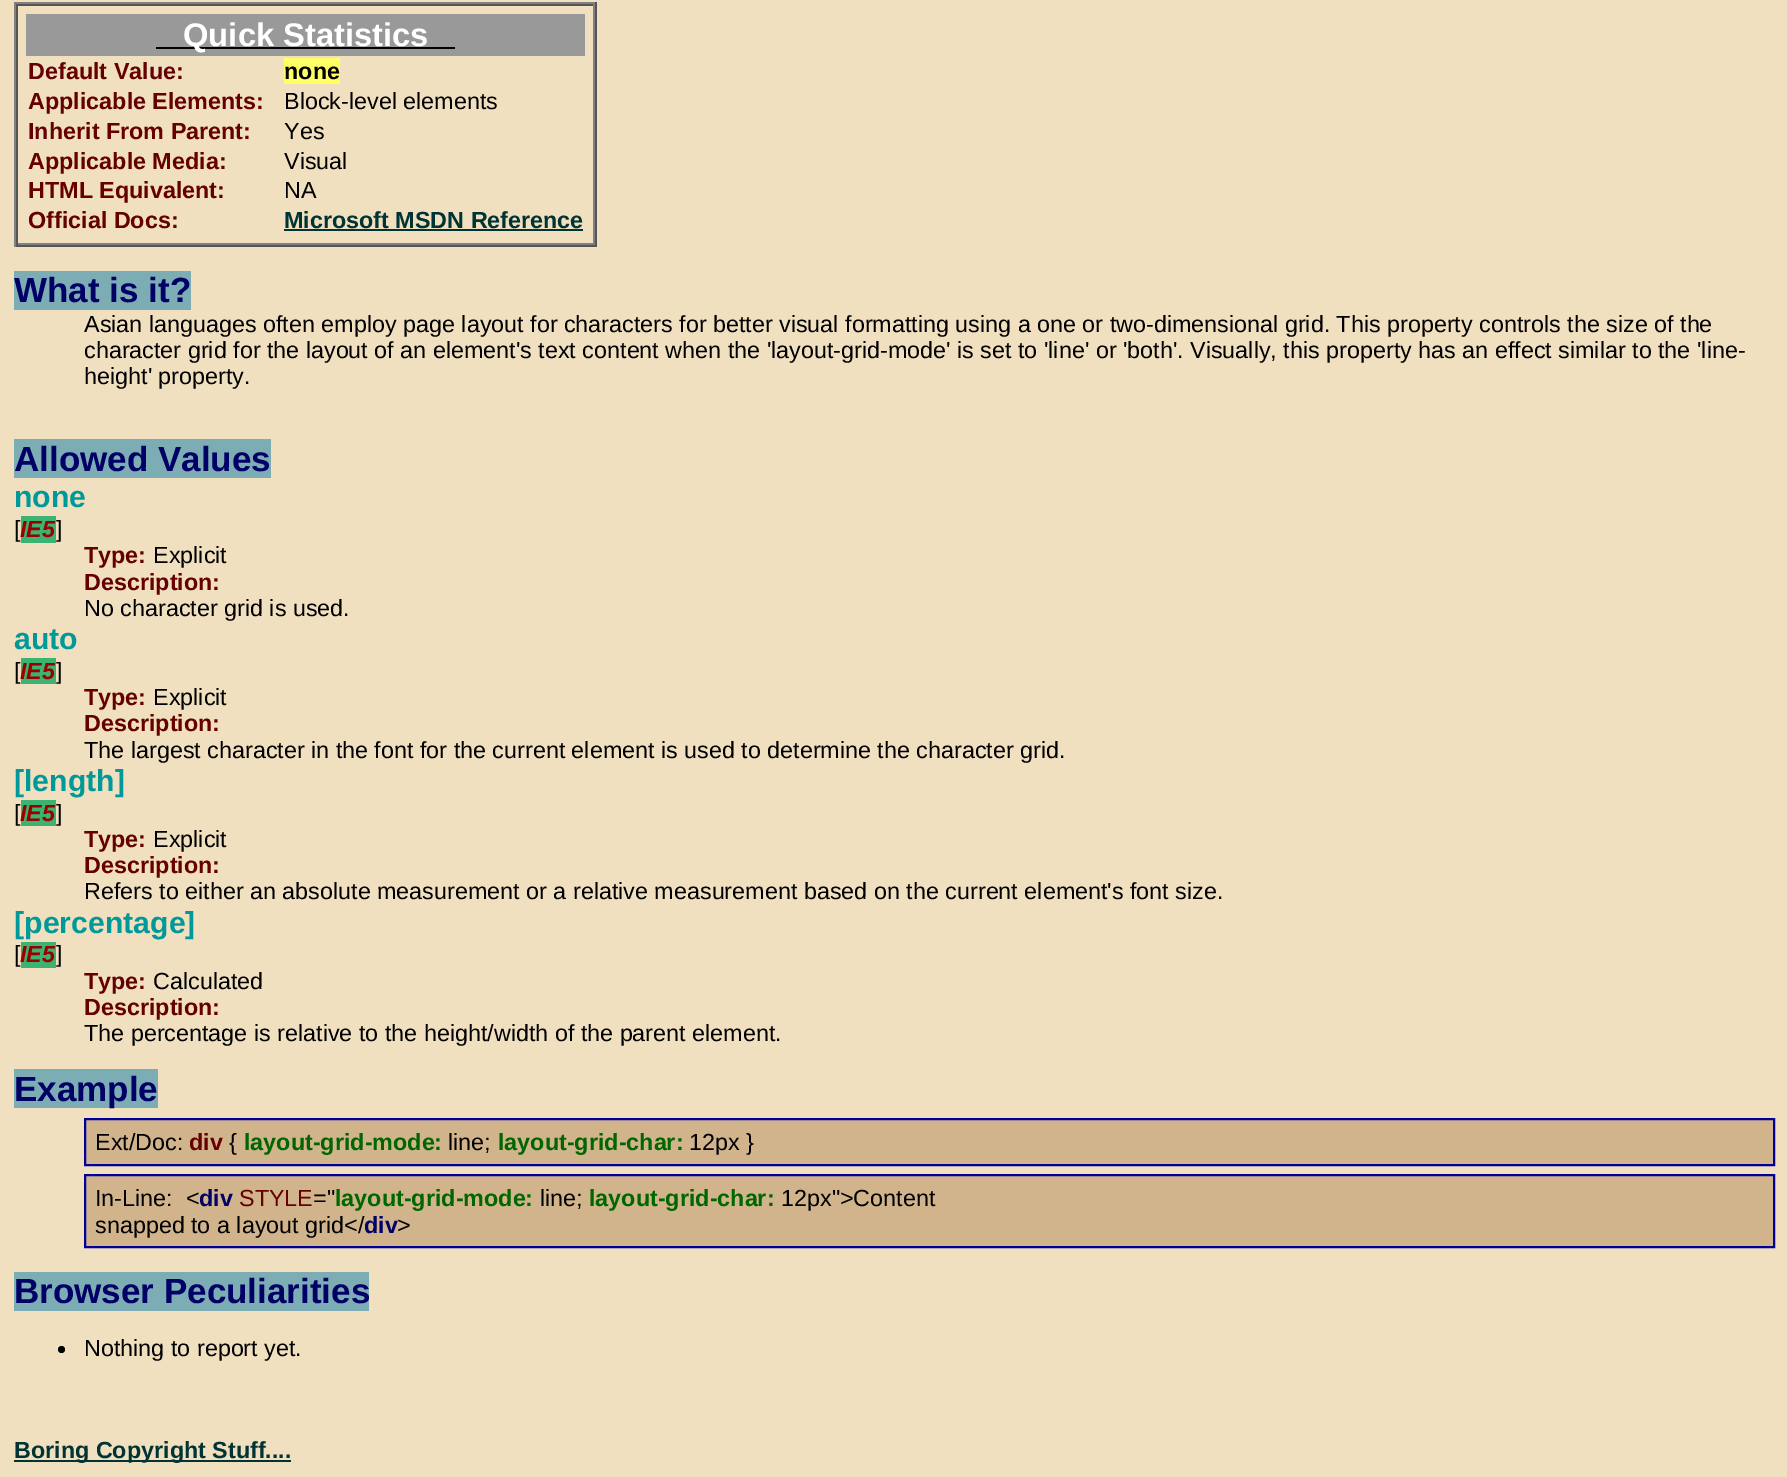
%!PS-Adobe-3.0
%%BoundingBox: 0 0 1787 1477
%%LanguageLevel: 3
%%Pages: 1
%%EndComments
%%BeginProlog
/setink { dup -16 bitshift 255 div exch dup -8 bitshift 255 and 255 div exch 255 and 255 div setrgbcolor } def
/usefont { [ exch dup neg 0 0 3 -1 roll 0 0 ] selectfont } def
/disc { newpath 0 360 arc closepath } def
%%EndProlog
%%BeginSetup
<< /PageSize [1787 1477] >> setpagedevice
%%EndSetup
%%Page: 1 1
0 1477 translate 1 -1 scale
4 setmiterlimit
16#F0E0C0 setink
0 0 1787 1477 rectfill
[
    [14 2 583 2 16#808080]
    [595 2 2 245 16#555555]
    [14 245 583 2 16#555555]
    [14 2 2 245 16#808080]
    [16 4 579 2 16#555555]
    [593 4 2 241 16#808080]
    [16 243 579 2 16#808080]
    [16 4 2 241 16#555555]
    [26 14 559 42 16#999999]
    [156 47 299 2 16#000000]
] { aload pop setink rectfill } forall
/LiberationSans-Bold 32.75 usefont
16#FFFFFF setink
183 46 moveto (Quick Statistics) show
/LiberationSans-Bold 23.33 usefont
16#660000 setink
28 79 moveto (Default Value:) show
16#FFFF66 setink
284 58 56 26 rectfill
16#000000 setink
284 79 moveto (none) show
16#660000 setink
28 109 moveto (Applicable Elements:) show
/LiberationSans-Regular 23.33 usefont
16#000000 setink
284 109 moveto (Block-level elements) show
/LiberationSans-Bold 23.33 usefont
16#660000 setink
28 139 moveto (Inherit From Parent:) show
/LiberationSans-Regular 23.33 usefont
16#000000 setink
284 139 moveto (Yes) show
/LiberationSans-Bold 23.33 usefont
16#660000 setink
28 169 moveto (Applicable Media:) show
/LiberationSans-Regular 23.33 usefont
16#000000 setink
284 169 moveto (Visual) show
/LiberationSans-Bold 23.33 usefont
16#660000 setink
28 198 moveto (HTML Equivalent:) show
/LiberationSans-Regular 23.33 usefont
16#000000 setink
284 198 moveto (NA) show
/LiberationSans-Bold 23.33 usefont
16#660000 setink
28 228 moveto (Official Docs:) show
16#003333 setink
284 228 moveto (Microsoft MSDN Reference) show
284 229 299 2 rectfill
16#7CADB4 setink
14 271 177 39 rectfill
/LiberationSans-Bold 35 usefont
16#000066 setink
14 302 moveto (What is it?) show
/LiberationSans-Regular 23.33 usefont
16#000000 setink
[
    [(Asian languages often employ page layout for characters for better visual formatting using a one or two-dimensional grid. This property controls the size of the) 84 332]
    [(character grid for the layout of an element's text content when the 'layout-grid-mode' is set to 'line' or 'both'. Visually, this property has an effect similar to the 'line-) 84 358]
    [(height' property.) 84 384]
] { aload pop moveto show } forall
16#7CADB4 setink
14 439 257 39 rectfill
/LiberationSans-Bold 35 usefont
16#000066 setink
14 471 moveto (Allowed Values) show
/LiberationSans-Bold 30.25 usefont
16#009999 setink
14 507 moveto (none) show
/LiberationSans-Regular 23.33 usefont
16#000000 setink
14 537 moveto ([) show
16#3CB371 setink
21 516 35 27 rectfill
/LiberationSans-BoldItalic 23.33 usefont
16#990000 setink
20 537 moveto (IE5) show
/LiberationSans-Regular 23.33 usefont
16#000000 setink
56 537 moveto (]) show
/LiberationSans-Bold 23.33 usefont
16#660000 setink
84 563 moveto (Type:) show
/LiberationSans-Regular 23.33 usefont
16#000000 setink
153 563 moveto (Explicit) show
/LiberationSans-Bold 23.33 usefont
16#660000 setink
84 590 moveto (Description:) show
/LiberationSans-Regular 23.33 usefont
16#000000 setink
84 616 moveto (No character grid is used.) show
/LiberationSans-Bold 30.25 usefont
16#009999 setink
14 649 moveto (auto) show
/LiberationSans-Regular 23.33 usefont
16#000000 setink
14 679 moveto ([) show
16#3CB371 setink
21 658 35 26 rectfill
/LiberationSans-BoldItalic 23.33 usefont
16#990000 setink
20 679 moveto (IE5) show
/LiberationSans-Regular 23.33 usefont
16#000000 setink
56 679 moveto (]) show
/LiberationSans-Bold 23.33 usefont
16#660000 setink
84 705 moveto (Type:) show
/LiberationSans-Regular 23.33 usefont
16#000000 setink
153 705 moveto (Explicit) show
/LiberationSans-Bold 23.33 usefont
16#660000 setink
84 731 moveto (Description:) show
/LiberationSans-Regular 23.33 usefont
16#000000 setink
84 758 moveto (The largest character in the font for the current element is used to determine the character grid.) show
/LiberationSans-Bold 30.25 usefont
16#009999 setink
14 791 moveto ([length]) show
/LiberationSans-Regular 23.33 usefont
16#000000 setink
14 821 moveto ([) show
16#3CB371 setink
21 800 35 26 rectfill
/LiberationSans-BoldItalic 23.33 usefont
16#990000 setink
20 821 moveto (IE5) show
/LiberationSans-Regular 23.33 usefont
16#000000 setink
56 821 moveto (]) show
/LiberationSans-Bold 23.33 usefont
16#660000 setink
84 847 moveto (Type:) show
/LiberationSans-Regular 23.33 usefont
16#000000 setink
153 847 moveto (Explicit) show
/LiberationSans-Bold 23.33 usefont
16#660000 setink
84 873 moveto (Description:) show
/LiberationSans-Regular 23.33 usefont
16#000000 setink
84 899 moveto (Refers to either an absolute measurement or a relative measurement based) show
874 899 moveto (on the current element's font size.) show
/LiberationSans-Bold 30.25 usefont
16#009999 setink
14 933 moveto ([percentage]) show
/LiberationSans-Regular 23.33 usefont
16#000000 setink
14 962 moveto ([) show
16#3CB371 setink
21 942 35 26 rectfill
/LiberationSans-BoldItalic 23.33 usefont
16#990000 setink
20 962 moveto (IE5) show
/LiberationSans-Regular 23.33 usefont
16#000000 setink
56 962 moveto (]) show
/LiberationSans-Bold 23.33 usefont
16#660000 setink
84 989 moveto (Type:) show
/LiberationSans-Regular 23.33 usefont
16#000000 setink
153 989 moveto (Calculated) show
/LiberationSans-Bold 23.33 usefont
16#660000 setink
84 1015 moveto (Description:) show
/LiberationSans-Regular 23.33 usefont
16#000000 setink
84 1041 moveto (The percentage is relative to the height/width of the parent element.) show
16#7CADB4 setink
14 1069 144 39 rectfill
/LiberationSans-Bold 35 usefont
16#000066 setink
14 1101 moveto (Example) show
16#D2B48C setink
85 1119 moveto 1774 1119 lineto 1774 1165 lineto 85 1165 lineto closepath gsave fill grestore
16#000099 setink
2 setlinewidth
stroke
/LiberationSans-Regular 23.33 usefont
16#000000 setink
95 1150 moveto (Ext/Doc:) show
/LiberationSans-Bold 23.33 usefont
16#660000 setink
189 1150 moveto (div) show
/LiberationSans-Regular 23.33 usefont
16#000000 setink
229 1150 moveto ({) show
/LiberationSans-Bold 23.33 usefont
16#006600 setink
244 1150 moveto (layout-grid-mode:) show
/LiberationSans-Regular 23.33 usefont
16#000000 setink
448 1150 moveto (line;) show
/LiberationSans-Bold 23.33 usefont
16#006600 setink
498 1150 moveto (layout-grid-char:) show
/LiberationSans-Regular 23.33 usefont
16#000000 setink
689 1150 moveto (12px }) show
16#D2B48C setink
85 1175 moveto 1774 1175 lineto 1774 1247 lineto 85 1247 lineto closepath gsave fill grestore
16#000099 setink
stroke
16#000000 setink
95 1206 moveto (In-Line:  <) show
/LiberationSans-Bold 23.33 usefont
16#000066 setink
199 1206 moveto (div) show
/LiberationSans-Regular 23.33 usefont
16#660000 setink
239 1206 moveto (STYLE) show
16#000000 setink
313 1206 moveto (=") show
/LiberationSans-Bold 23.33 usefont
16#006600 setink
335 1206 moveto (layout-grid-mode:) show
/LiberationSans-Regular 23.33 usefont
16#000000 setink
540 1206 moveto (line;) show
/LiberationSans-Bold 23.33 usefont
16#006600 setink
589 1206 moveto (layout-grid-char:) show
/LiberationSans-Regular 23.33 usefont
16#000000 setink
781 1206 moveto (12px">Content) show
95 1233 moveto (snapped to a layout grid</) show
/LiberationSans-Bold 23.33 usefont
16#000066 setink
364 1233 moveto (div) show
/LiberationSans-Regular 23.33 usefont
16#000000 setink
397 1233 moveto (>) show
16#7CADB4 setink
14 1272 355 39 rectfill
/LiberationSans-Bold 35 usefont
16#000066 setink
14 1303 moveto (Browser Peculiarities) show
16#000000 setink
61.5 1349.5 3.5 disc fill
/LiberationSans-Regular 23.33 usefont
84 1356 moveto (Nothing to report yet.) show
16#003333 setink
14 1460 277 2 rectfill
/LiberationSans-Bold 23.33 usefont
14 1458 moveto (Boring Copyright Stuff....) show
showpage
%%EOF
